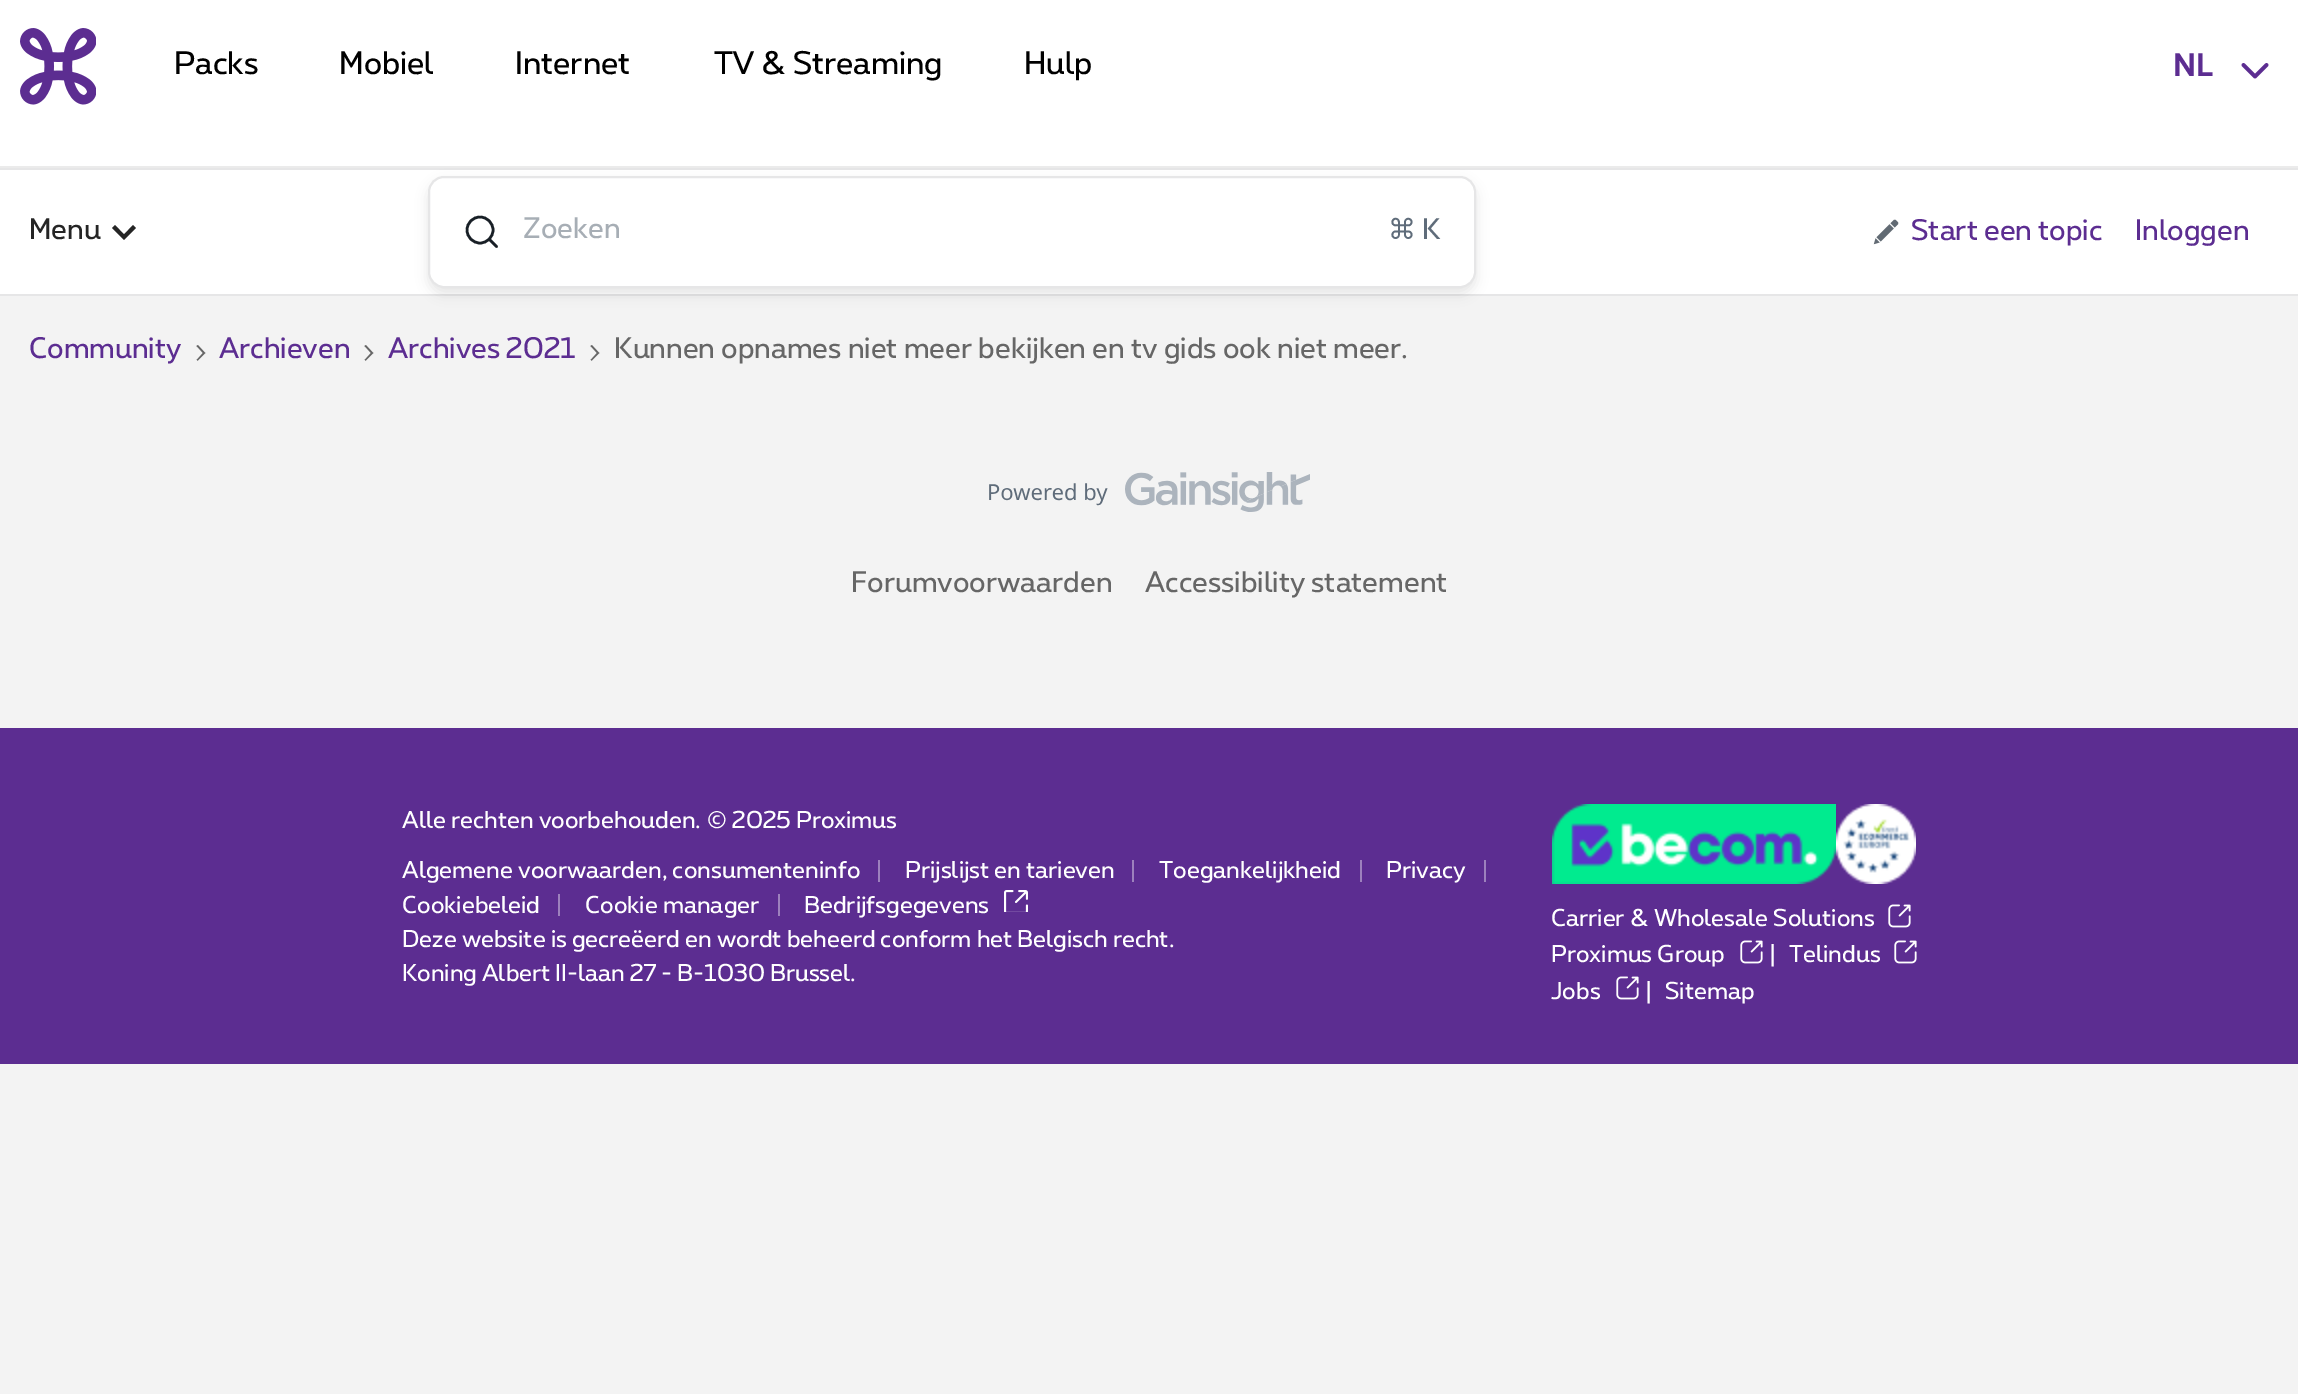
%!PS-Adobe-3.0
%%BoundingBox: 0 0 2298 1394
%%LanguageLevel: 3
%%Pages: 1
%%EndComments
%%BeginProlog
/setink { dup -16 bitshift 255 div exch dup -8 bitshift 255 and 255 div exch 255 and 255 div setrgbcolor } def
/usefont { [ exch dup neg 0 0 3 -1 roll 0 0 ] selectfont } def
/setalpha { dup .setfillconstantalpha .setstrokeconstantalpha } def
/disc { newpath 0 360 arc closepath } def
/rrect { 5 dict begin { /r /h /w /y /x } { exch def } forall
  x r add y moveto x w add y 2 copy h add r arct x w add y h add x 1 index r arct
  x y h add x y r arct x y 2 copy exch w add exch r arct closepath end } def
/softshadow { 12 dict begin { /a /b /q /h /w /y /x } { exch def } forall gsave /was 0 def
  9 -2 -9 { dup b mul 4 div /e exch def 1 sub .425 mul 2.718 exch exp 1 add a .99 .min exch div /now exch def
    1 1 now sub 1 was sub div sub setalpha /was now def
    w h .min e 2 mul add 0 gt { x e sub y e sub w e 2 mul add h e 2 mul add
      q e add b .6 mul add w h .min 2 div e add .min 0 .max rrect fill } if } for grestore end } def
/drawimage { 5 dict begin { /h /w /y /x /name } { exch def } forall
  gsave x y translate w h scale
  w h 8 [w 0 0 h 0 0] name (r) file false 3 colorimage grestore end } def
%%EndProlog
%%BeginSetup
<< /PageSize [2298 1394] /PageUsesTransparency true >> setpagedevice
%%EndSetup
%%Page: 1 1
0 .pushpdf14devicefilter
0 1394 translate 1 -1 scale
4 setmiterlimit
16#F3F3F3 setink
0 0 2298 1394 rectfill
[
    [0 170 2298 124 16#FFFFFF]
    [0 168 2298 2 16#E6E6E7]
    [0 294 2298 2 16#E6E6E7]
] { aload pop setink rectfill } forall
16#000000 setink
428 182 1048 112 16 6 0.1 softshadow
16#FFFFFF setink
0 0 2298 166 rectfill
16#EBEBEB setink
0 166 2298 2 rectfill
(img1.raw) 20 28 76 77 drawimage
/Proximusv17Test-Regular 30.75 usefont
16#000000 setink
[
    [(Packs) 174 74]
    [(Mobiel) 339 74]
    [(Internet) 515 74]
    [(TV & Streaming) 714 74]
    [(Hulp) 1024 74]
] { aload pop moveto show } forall
/Proximusv17Test-Bold 30.75 usefont
16#5C2D91 setink
2173 76 moveto (NL) show
3.8 setlinewidth
1 setlinecap
1 setlinejoin
2266.5 65 moveto 2255 76.5 lineto 2243.5 65 lineto stroke
/Proximusv17Test-Regular 28 usefont
16#252525 setink
29 239 moveto (Menu) show
115 225 moveto 124 234.5 lineto 133 225 lineto 136 228 lineto 124 240 lineto 112 228 lineto closepath fill
16#FFFFFF setink
429 177 1046 110 15 rrect gsave fill grestore
16#E6E6E7 setink
2 setlinewidth
0 setlinecap
0 setlinejoin
stroke
16#181F26 setink
2.6 setlinewidth
480 230 13 disc stroke
1 setlinecap
489.5 239.5 moveto 496.5 246.5 lineto stroke
16#A7AEB5 setink
523 238 moveto (Zoeken) show
/DejaVuSans-Regular 28 usefont
16#5F6C7A setink
1388 239 moveto (⌘) show
/Proximusv17Test-Regular 28 usefont
1422 239 moveto (K) show
(img2.raw) 1873 219 26 26 drawimage
16#5C2D91 setink
[
    [(Start een topic) 1911 240]
    [(Inloggen) 2135 240]
    [(Community) 29 358]
] { aload pop moveto show } forall
(img3.raw) 196 345 10 16 drawimage
219 358 moveto (Archieven) show
(img3.raw) 364 345 10 16 drawimage
388 358 moveto (Archives 2021) show
(img3.raw) 590 345 10 16 drawimage
16#666666 setink
614 358 moveto (Kunnen opnames niet meer bekijken en tv gids ook niet meer.) show
(img4.raw) 989 472 321 40 drawimage
851 592 moveto (Forumvoorwaarden) show
1145 592 moveto (Accessibility statement) show
16#5C2D91 setink
0 728 2298 336 rectfill
/Proximusv17Test-Regular 23 usefont
16#FFFFFF setink
[
    [(Alle rechten voorbehouden. ©) 402 828]
    [(2025 Proximus) 732 828]
    [(Algemene voorwaarden, consumenteninfo) 402 878]
] { aload pop moveto show } forall
16#9D81BD setink
878 860 2 22 rectfill
16#FFFFFF setink
905 878 moveto (Prijslijst en tarieven) show
16#9D81BD setink
1132 860 2 22 rectfill
16#FFFFFF setink
1159 878 moveto (Toegankelijkheid) show
16#9D81BD setink
1360 860 2 22 rectfill
16#FFFFFF setink
1386 878 moveto (Privacy) show
16#9D81BD setink
1484 860 2 22 rectfill
16#FFFFFF setink
402 913 moveto (Cookiebeleid) show
16#9D81BD setink
558 894 2 22 rectfill
16#FFFFFF setink
585 913 moveto (Cookie manager) show
16#9D81BD setink
778 894 2 22 rectfill
16#FFFFFF setink
804 913 moveto (Bedrijfsgegevens) show
(img5.raw) 1004 890 24 22 drawimage
402 947 moveto -0.1 0 32 (Deze website is gecreëerd en wordt beheerd conform het Belgisch recht.) widthshow
402 981 moveto -0.1 0 32 (Koning Albert II-laan 27 - B-1030 Brussel.) widthshow
(img6.raw) 1552 804 284 80 drawimage
(img7.raw) 1836 804 80 80 drawimage
1551 926 moveto (Carrier & Wholesale Solutions) show
(img8.raw) 1888 904 23 24 drawimage
1551 962 moveto (Proximus Group) show
(img8.raw) 1740 940 23 24 drawimage
1767 962 moveto (|) show
1789 962 moveto (Telindus) show
(img8.raw) 1894 940 23 24 drawimage
1551 999 moveto (Jobs) show
(img8.raw) 1616 976 23 24 drawimage
1643 999 moveto (|) show
1665 999 moveto (Sitemap) show
.poppdf14devicefilter showpage
%%EOF
